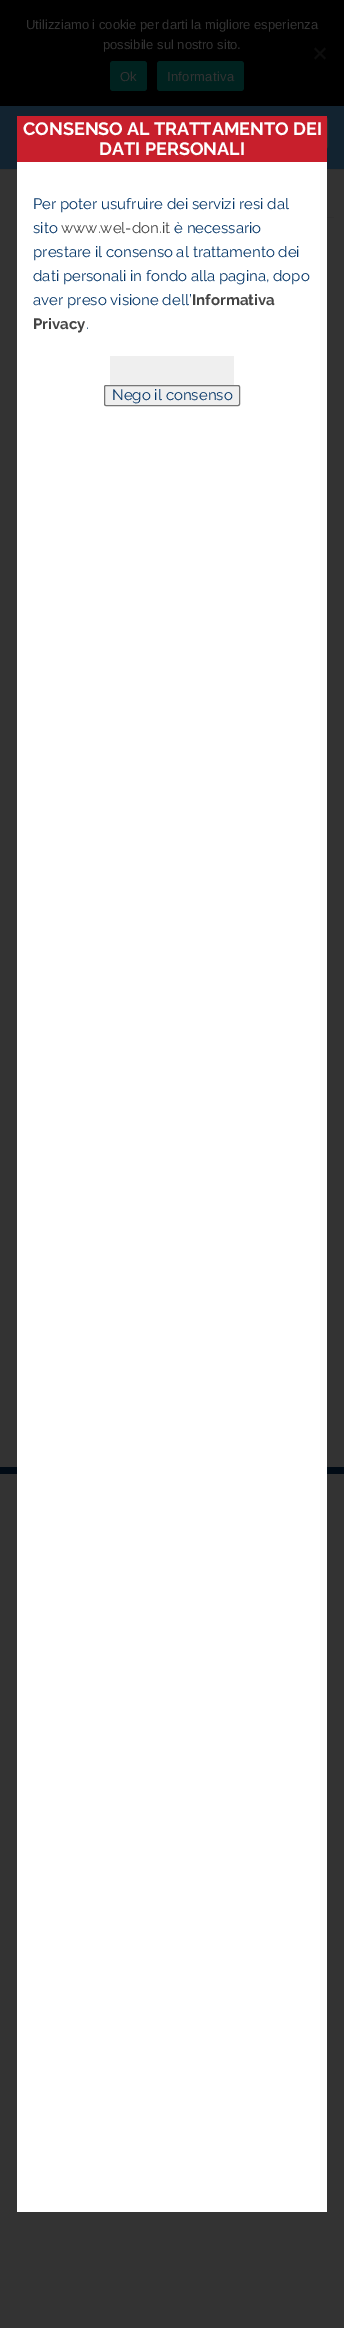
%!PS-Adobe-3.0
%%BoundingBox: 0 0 344 2328
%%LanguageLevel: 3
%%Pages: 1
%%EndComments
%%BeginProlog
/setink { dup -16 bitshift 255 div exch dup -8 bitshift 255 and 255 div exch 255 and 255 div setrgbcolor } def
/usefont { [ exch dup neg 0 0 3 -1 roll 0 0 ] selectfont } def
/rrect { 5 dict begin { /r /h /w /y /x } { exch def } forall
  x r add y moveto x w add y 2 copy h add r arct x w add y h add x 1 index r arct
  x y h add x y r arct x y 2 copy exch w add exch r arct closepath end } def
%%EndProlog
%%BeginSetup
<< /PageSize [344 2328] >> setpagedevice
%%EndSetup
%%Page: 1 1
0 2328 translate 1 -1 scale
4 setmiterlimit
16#333333 setink
0 0 344 2328 rectfill
16#000000 setink
0 0 344 106 rectfill
/LiberationSans-Regular 13 usefont
16#333333 setink
26 29 moveto (Utilizziamo i cookie per darti la migliore esperienza) show
103 49 moveto (possibile sul nostro sito.) show
16#0D0D0D setink
324.5 47.5 moveto 326 49 lineto 315.5 59.5 lineto 314 58 lineto closepath fill
314 49 moveto 315.5 47.5 lineto 326 58 lineto 324.5 59.5 lineto closepath fill
16#00221F setink
110 61 37 30 3 rrect fill
16#333333 setink
120 81 moveto 0.25 0 (Ok) ashow
16#00221F setink
157 61 87 30 3 rrect fill
16#333333 setink
167 81 moveto 0.25 0 (Informativa) ashow
16#122330 setink
0 106 344 63 rectfill
16#2F2F2F setink
0 169 344 1 rectfill
16#2C2C2C setink
284.5 116.5 43 33 3.5 rrect stroke
[
    [327 217 7 1 16#303030]
    [0 1467 344 7 16#010B15]
    [17 162 310 2050 16#FFFFFF]
    [17 116 310 46 16#C81F2C]
] { aload pop setink rectfill } forall
/Raleway-Bold 18 usefont
16#FFFFFF setink
23 135 moveto (CONSENSO AL TRATTAMENTO DEI) show
99 155 moveto (DATI PERSONALI) show
/Raleway-Regular 15 usefont
16#053668 setink
33 209 moveto (Per poter usufruire dei servizi resi dal) show
33 233 moveto (sito) show
16#444444 setink
61 233 moveto (www.wel-don.it) show
16#053668 setink
[
    [(è necessario) 174 233]
    [(prestare il consenso al trattamento dei) 33 257]
    [(dati personali in fondo alla pagina, dopo) 33 281]
    [(aver preso visione dell’) 33 305]
] { aload pop moveto show } forall
/Raleway-Bold 15 usefont
16#444444 setink
192 305 moveto (Informativa) show
33 329 moveto (Privacy) show
/Raleway-Regular 15 usefont
16#053668 setink
86 329 moveto (.) show
16#EFEFEF setink
110 356 124 29 rectfill
104.5 385.5 135 20 1.5 rrect gsave fill grestore
16#767676 setink
stroke
16#053668 setink
112 400 moveto (Nego il consenso) show
showpage
%%EOF
